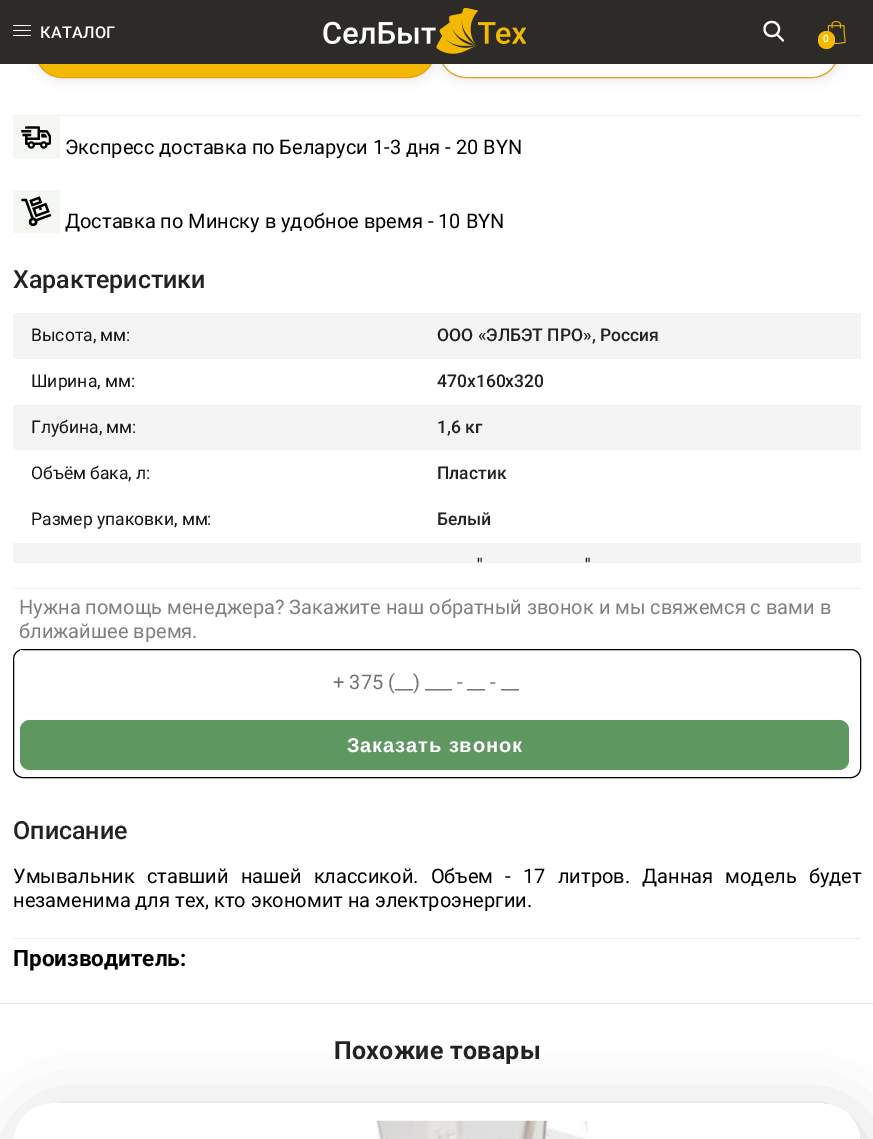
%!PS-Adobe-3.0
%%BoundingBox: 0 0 873 1139
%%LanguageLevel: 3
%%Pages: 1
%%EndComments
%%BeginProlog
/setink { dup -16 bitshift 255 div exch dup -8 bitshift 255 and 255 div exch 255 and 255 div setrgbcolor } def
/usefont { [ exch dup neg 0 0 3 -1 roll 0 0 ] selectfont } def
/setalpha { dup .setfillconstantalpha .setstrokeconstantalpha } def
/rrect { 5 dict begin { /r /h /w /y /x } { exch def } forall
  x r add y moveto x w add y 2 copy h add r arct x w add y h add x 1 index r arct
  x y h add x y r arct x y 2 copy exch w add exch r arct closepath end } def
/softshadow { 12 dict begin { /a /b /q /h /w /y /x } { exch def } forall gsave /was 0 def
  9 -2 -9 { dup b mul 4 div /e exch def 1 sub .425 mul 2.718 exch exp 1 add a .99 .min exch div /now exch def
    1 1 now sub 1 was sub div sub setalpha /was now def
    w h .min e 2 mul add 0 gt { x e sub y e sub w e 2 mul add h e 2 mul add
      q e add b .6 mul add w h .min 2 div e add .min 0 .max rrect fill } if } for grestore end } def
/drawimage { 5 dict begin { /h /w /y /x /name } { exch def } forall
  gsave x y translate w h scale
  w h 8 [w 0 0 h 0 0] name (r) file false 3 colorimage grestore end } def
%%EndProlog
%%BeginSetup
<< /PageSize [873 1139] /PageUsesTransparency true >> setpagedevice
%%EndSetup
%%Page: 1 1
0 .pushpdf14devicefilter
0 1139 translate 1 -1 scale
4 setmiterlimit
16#FFFFFF setink
0 0 873 1139 rectfill
16#000000 setink
36 25 400 54 27 6 0.1 softshadow
16#F3B900 setink
35.5 24.5 399 53 26.5 rrect gsave fill grestore
16#E69F16 setink
stroke
16#000000 setink
440 25 400 54 27 6 0.1 softshadow
16#FFFFFF setink
439.5 24.5 399 53 26.5 rrect gsave fill grestore
16#E69F16 setink
stroke
16#2C2B27 setink
0 0 873 64 rectfill
(img1.raw) 323 8 203 46 drawimage
[
    [13 30 18 1 16#FFFFFF]
    [13 25 18 1 16#FFFFFF]
    [13 35 18 1 16#FFFFFF]
] { aload pop setink rectfill } forall
/Roboto-Medium 16.25 usefont
40 38 moveto 0.25 0 (КАТАЛОГ) ashow
2.1 setlinewidth
1 setlinecap
1 setlinejoin
783 40.5 moveto 777 34.5 lineto 779 29 moveto 779 38.5 764.5 38.5 764.5 29 curveto 764.5 19.5 779 19.5 779 29 curveto closepath stroke
(img2.raw) 827 21 19 23 drawimage
16#F3B900 setink
818 31 17 18 8.5 rrect fill
/Roboto-Medium 10 usefont
16#FFFFFF setink
823 42 moveto (0) show
16#F0F0F0 setink
13 115 848 1 rectfill
16#F5F7F3 setink
13 116 47 43 rectfill
(img3.raw) 21 126 30 23 drawimage
/Roboto-Regular 20 usefont
16#000000 setink
65 154 moveto (Экспресс доставка по Беларуси 1-3 дня - 20 BYN) show
16#F5F7F3 setink
13 190 47 43 rectfill
(img4.raw) 21 196 30 30 drawimage
16#000000 setink
65 228 moveto (Доставка по Минску в удобное время - 10 BYN) show
/Roboto-Medium 25 usefont
16#222222 setink
13 288 moveto (Характеристики) show
16#F0F0F0 setink
13 588 848 1 rectfill
16#F4F4F4 setink
13 313 848 46 rectfill
/Roboto-Regular 17.5 usefont
16#161616 setink
31 341 moveto (Высота, мм:) show
/Roboto-Medium 17.5 usefont
16#222222 setink
437 341 moveto (ООО «ЭЛБЭТ ПРО», Россия) show
/Roboto-Regular 17.5 usefont
16#161616 setink
31 387 moveto (Ширина, мм:) show
/Roboto-Medium 17.5 usefont
16#222222 setink
437 387 moveto (470х160х320) show
16#F4F4F4 setink
13 405 848 45 rectfill
/Roboto-Regular 17.5 usefont
16#161616 setink
31 433 moveto (Глубина, мм:) show
/Roboto-Medium 17.5 usefont
16#222222 setink
437 433 moveto (1,6 кг) show
/Roboto-Regular 17.5 usefont
16#161616 setink
31 479 moveto (Объём бака, л:) show
/Roboto-Medium 17.5 usefont
16#222222 setink
437 479 moveto (Пластик) show
/Roboto-Regular 17.5 usefont
16#161616 setink
31 525 moveto (Размер упаковки, мм:) show
/Roboto-Medium 17.5 usefont
16#222222 setink
437 525 moveto (Белый) show
16#F4F4F4 setink
13 543 848 20 rectfill
16#222222 setink
477 571 moveto (") show
585 571 moveto (") show
/Roboto-Regular 20 usefont
16#808080 setink
19 614 moveto (Нужна помощь менеджера? Закажите наш обратный звонок и мы свяжемся с вами в) show
19 638 moveto (ближайшее время.) show
16#000000 setink
1 setlinewidth
0 setlinecap
0 setlinejoin
13.5 649.5 847 128 9.5 rrect stroke
16#FFFFFF setink
20 650 3 1 rectfill
16#757575 setink
333 689 moveto (+ 375 \(__\) ___ - __ - __) show
16#5E9760 setink
20 720 829 50 10 rrect fill
/LiberationSans-Bold 20 usefont
16#FFFFFF setink
347 752 moveto 0.9 0 (Заказать звонок) ashow
/Roboto-Medium 25 usefont
16#222222 setink
13 839 moveto (Описание) show
16#F0F0F0 setink
13 938 848 1 rectfill
/Roboto-Regular 20 usefont
16#000000 setink
13 883 moveto 7.25 0 32 (Умывальник ставший нашей классикой. Объем - 17 литров. Данная модель будет) widthshow
13 907 moveto (незаменима для тех, кто экономит на электроэнергии.) show
/Roboto-Bold 22.5 usefont
13 966 moveto (Производитель:) show
16#E9E9E9 setink
0 1003 873 1 rectfill
gsave
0 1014 moveto 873 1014 lineto 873 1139 lineto 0 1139 lineto closepath 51 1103 moveto 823 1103 lineto 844 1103 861 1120 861 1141 curveto 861 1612 lineto 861 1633 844 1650 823 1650 curveto 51 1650 lineto 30 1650 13 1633 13 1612 curveto 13 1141 lineto 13 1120 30 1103 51 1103 curveto closepath eoclip newpath
16#000000 setink
18 1108 848 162 38 31 0.15 softshadow
grestore
(img5.raw) 375 1120 213 19 drawimage
/Roboto-Bold 25 usefont
16#222222 setink
334 1059 moveto 0.25 0 (Похожие товары) ashow
.poppdf14devicefilter showpage
%%EOF
